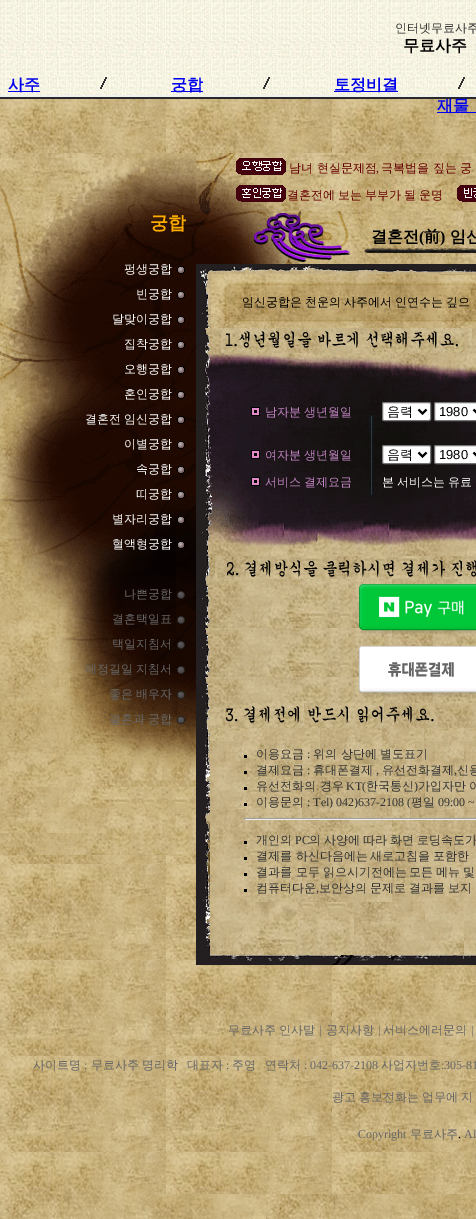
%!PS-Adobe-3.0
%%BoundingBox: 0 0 476 1219
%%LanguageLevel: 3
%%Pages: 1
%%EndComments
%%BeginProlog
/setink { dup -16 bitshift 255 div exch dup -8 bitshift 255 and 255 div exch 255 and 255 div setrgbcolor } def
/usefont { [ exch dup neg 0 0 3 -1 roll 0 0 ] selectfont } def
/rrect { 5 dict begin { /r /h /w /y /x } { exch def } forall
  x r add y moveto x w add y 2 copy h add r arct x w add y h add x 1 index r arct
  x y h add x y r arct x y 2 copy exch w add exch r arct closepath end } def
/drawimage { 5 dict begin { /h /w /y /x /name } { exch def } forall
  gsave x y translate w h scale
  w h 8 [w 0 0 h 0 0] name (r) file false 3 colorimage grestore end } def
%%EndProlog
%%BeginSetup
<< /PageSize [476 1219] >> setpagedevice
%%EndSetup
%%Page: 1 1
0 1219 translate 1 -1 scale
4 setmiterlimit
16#FFFFFF setink
0 0 476 1219 rectfill
(img1.raw) 0 1194 476 25 drawimage
(img2.raw) 0 0 476 1194 drawimage
/WenQuanYiZenHei-Medium 12 usefont
16#333333 setink
395 32 moveto (인터넷무료사주) show
/WenQuanYiZenHei-Bold 16 usefont
16#000000 setink
403 51 moveto -1 0 32 (무료사주) widthshow
16#0000EE setink
8 91 32 1 rectfill
8 90 moveto (사주) show
(img3.raw) 40 76 127 14 drawimage
171 91 32 1 rectfill
171 90 moveto (궁합) show
(img3.raw) 203 76 127 14 drawimage
334 91 64 1 rectfill
334 90 moveto (토정비결) show
(img4.raw) 398 76 78 14 drawimage
437 112 39 1 rectfill
437 111 moveto (재물) show
(img5.raw) 0 153 196 702 drawimage
/WenQuanYiZenHei-Bold 18 usefont
16#FEAD00 setink
150 229 moveto (궁합) show
/WenQuanYiZenHei-Medium 12 usefont
16#FFFFFF setink
124 273 moveto (펑생궁합) show
(img6.raw) 177 266 8 8 drawimage
136 298 moveto (빈궁합) show
(img7.raw) 177 291 8 8 drawimage
112 323 moveto (달맞이궁합) show
(img8.raw) 177 316 8 8 drawimage
124 348 moveto (집착궁합) show
(img9.raw) 177 341 8 8 drawimage
124 373 moveto (오행궁합) show
(img10.raw) 177 366 8 8 drawimage
124 398 moveto (혼인궁합) show
(img11.raw) 177 391 8 8 drawimage
85 423 moveto (결혼전) show
124 423 moveto (임신궁합) show
(img12.raw) 177 416 8 8 drawimage
124 448 moveto (이별궁합) show
(img7.raw) 177 441 8 8 drawimage
136 473 moveto (속궁합) show
(img13.raw) 177 466 8 8 drawimage
136 498 moveto (띠궁합) show
(img14.raw) 177 491 8 8 drawimage
112 523 moveto (별자리궁합) show
(img15.raw) 177 516 8 8 drawimage
112 548 moveto (혈액형궁합) show
(img16.raw) 177 541 8 8 drawimage
16#666666 setink
124 598 moveto (나쁜궁합) show
(img17.raw) 177 591 8 8 drawimage
112 623 moveto (결혼택일표) show
(img18.raw) 177 616 8 8 drawimage
112 648 moveto (택일지침서) show
(img19.raw) 177 641 8 8 drawimage
85 673 moveto (애정길일) show
136 673 moveto (지침서) show
(img20.raw) 177 666 8 8 drawimage
109 698 moveto (좋은) show
136 698 moveto (배우자) show
(img21.raw) 177 691 8 8 drawimage
109 723 moveto (결혼과) show
148 723 moveto (궁합) show
(img22.raw) 177 716 8 8 drawimage
(img23.raw) 196 153 280 58 drawimage
(img24.raw) 236 158 50 17 drawimage
16#660000 setink
289 172 moveto (남녀 현실문제점) show
/LiberationSerif-Regular 12 usefont
376 172 moveto (,) show
/WenQuanYiZenHei-Medium 12 usefont
381 172 moveto (극복법을 짚는 궁) show
(img25.raw) 236 185 50 17 drawimage
287 199 moveto -0.5 0 32 (결혼전에 보는 부부가 될 운명) widthshow
(img26.raw) 457 185 19 17 drawimage
(img27.raw) 196 211 280 53 drawimage
/WenQuanYiZenHei-Bold 16 usefont
16#000000 setink
371 242 moveto (결혼전) show
/LiberationSerif-Bold 16 usefont
419 242 moveto (\() show
/WenQuanYiZenHei-Bold 16 usefont
424 242 moveto (前) show
/LiberationSerif-Bold 16 usefont
440 242 moveto (\)) show
/WenQuanYiZenHei-Bold 16 usefont
450 242 moveto (임신) show
(img28.raw) 196 264 280 26 drawimage
(img29.raw) 196 290 280 25 drawimage
/WenQuanYiZenHei-Medium 12 usefont
242 306 moveto -0.5 0 32 (임신궁합은 천운의 사주에서 인연수는) widthshow
446 306 moveto -0.5 0 32 (깊으) widthshow
(img30.raw) 196 315 280 13 drawimage
(img31.raw) 196 328 280 25 drawimage
(img32.raw) 196 353 280 203 drawimage
(img33.raw) 251 407 9 9 drawimage
16#C083C0 setink
265 416 moveto (남자분) show
304 416 moveto (생년월일) show
16#FFFFFF setink
382.5 402.5 48 18 1.5 rrect gsave fill grestore
16#767676 setink
stroke
16#000000 setink
2 setlinewidth
418.5 409.5 moveto 422.5 413.5 lineto 426.5 409.5 lineto stroke
/WenQuanYiZenHei-Medium 13 usefont
387 416 moveto (음력) show
16#FFFFFF setink
434.5 402.5 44 18 1.5 rrect gsave fill grestore
16#767676 setink
1 setlinewidth
stroke
16#000000 setink
2 setlinewidth
473.5 409.5 moveto 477.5 413.5 lineto 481.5 409.5 lineto stroke
/LiberationSans-Regular 13 usefont
439 416 moveto (1980) show
(img34.raw) 369 415 5 80 drawimage
(img33.raw) 251 450 9 9 drawimage
/WenQuanYiZenHei-Medium 12 usefont
16#C083C0 setink
265 459 moveto (여자분) show
304 459 moveto (생년월일) show
16#FFFFFF setink
382.5 445.5 48 18 1.5 rrect gsave fill grestore
16#767676 setink
1 setlinewidth
stroke
16#000000 setink
2 setlinewidth
418.5 452.5 moveto 422.5 456.5 lineto 426.5 452.5 lineto stroke
/WenQuanYiZenHei-Medium 13 usefont
387 459 moveto (음력) show
16#FFFFFF setink
434.5 445.5 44 18 1.5 rrect gsave fill grestore
16#767676 setink
1 setlinewidth
stroke
16#000000 setink
2 setlinewidth
473.5 452.5 moveto 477.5 456.5 lineto 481.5 452.5 lineto stroke
/LiberationSans-Regular 13 usefont
439 459 moveto (1980) show
(img33.raw) 251 477 9 9 drawimage
/WenQuanYiZenHei-Medium 12 usefont
16#C083C0 setink
265 486 moveto (서비스) show
304 486 moveto (결제요금) show
16#FFFFFF setink
382 486 moveto -0.5 0 32 (본 서비스는) widthshow
448 486 moveto -0.5 0 32 (유료) widthshow
(img35.raw) 196 556 280 23 drawimage
(img36.raw) 196 579 280 124 drawimage
(img37.raw) 359 584 117 50 drawimage
(img38.raw) 359 646 117 51 drawimage
(img39.raw) 196 703 280 25 drawimage
(img40.raw) 196 728 280 237 drawimage
16#333333 setink
256 758 moveto (이용요금) show
16#000000 setink
244 755 3 3 rectfill
/LiberationSerif-Regular 12 usefont
16#333333 setink
307 758 moveto (:) show
/WenQuanYiZenHei-Medium 12 usefont
313 758 moveto (위의 상단에 별도표기) show
256 774 moveto (결제요금) show
16#000000 setink
244 771 3 3 rectfill
/LiberationSerif-Regular 12 usefont
16#333333 setink
307 774 moveto (:) show
/WenQuanYiZenHei-Medium 12 usefont
313 774 moveto (휴대폰결제) show
/LiberationSerif-Regular 12 usefont
376 774 moveto (,) show
/WenQuanYiZenHei-Medium 12 usefont
382 774 moveto (유선전화결제) show
/LiberationSerif-Regular 12 usefont
454 774 moveto (,) show
/WenQuanYiZenHei-Medium 12 usefont
457 774 moveto (신용) show
256 790 moveto (유선전화의 경우) show
16#000000 setink
244 787 3 3 rectfill
/LiberationSerif-Regular 12 usefont
16#333333 setink
346 790 moveto (KT\() show
/WenQuanYiZenHei-Medium 12 usefont
366 790 moveto (한국통신) show
/LiberationSerif-Regular 12 usefont
414 790 moveto (\)) show
/WenQuanYiZenHei-Medium 12 usefont
418 790 moveto -0.5 0 32 (가입자만 이) widthshow
256 806 moveto (이용문의) show
16#000000 setink
244 803 3 3 rectfill
/LiberationSerif-Regular 12 usefont
16#333333 setink
307 806 moveto (: Tel\) 042\)637-2108 \() show
/WenQuanYiZenHei-Medium 12 usefont
411 806 moveto (평일) show
/LiberationSerif-Regular 12 usefont
438 806 moveto (09:00 ~) show
[
    [244 818 232 1 16#9F9F9F]
    [244 819 232 1 16#EEEEEE]
    [244 818 1 2 16#9F9F9F]
] { aload pop setink rectfill } forall
/WenQuanYiZenHei-Medium 12 usefont
16#333333 setink
256 844 moveto (개인의) show
16#000000 setink
244 841 3 3 rectfill
/LiberationSerif-Regular 12 usefont
16#333333 setink
295 844 moveto (PC) show
/WenQuanYiZenHei-Medium 12 usefont
309 844 moveto -0.5 0 32 (의 사양에 따라 화면 로딩속도가) widthshow
256 860 moveto (결제를 하신다음에는) show
16#000000 setink
244 857 3 3 rectfill
16#333333 setink
370 860 moveto -0.5 0 32 (새로고침을 포함한) widthshow
256 876 moveto (결과를 모두 읽으시기전에는) show
16#000000 setink
244 873 3 3 rectfill
16#333333 setink
409 876 moveto -0.5 0 32 (모든 메뉴 및) widthshow
256 892 moveto (컴퓨터다운) show
16#000000 setink
244 889 3 3 rectfill
/LiberationSerif-Regular 12 usefont
16#333333 setink
316 892 moveto (,) show
/WenQuanYiZenHei-Medium 12 usefont
319 892 moveto (보안상의) show
370 892 moveto -0.5 0 32 (문제로 결과를 보지) widthshow
16#666666 setink
228 1034 moveto (무료사주) show
279 1034 moveto (인사말) show
/LiberationSerif-Regular 12 usefont
319 1034 moveto (|) show
/WenQuanYiZenHei-Medium 12 usefont
326 1034 moveto (공지사항) show
/LiberationSerif-Regular 12 usefont
378 1034 moveto (|) show
/WenQuanYiZenHei-Medium 12 usefont
383 1034 moveto (서비스에러문의) show
/LiberationSerif-Regular 12 usefont
471 1034 moveto (|) show
/WenQuanYiZenHei-Medium 12 usefont
33 1069 moveto (사이트명) show
/LiberationSerif-Regular 12 usefont
84 1069 moveto (:) show
/WenQuanYiZenHei-Medium 12 usefont
91 1069 moveto -0.5 0 32 (무료사주 명리학) widthshow
187 1069 moveto (대표자) show
/LiberationSerif-Regular 12 usefont
226 1069 moveto (:) show
/WenQuanYiZenHei-Medium 12 usefont
232 1069 moveto (주영) show
265 1069 moveto (연락처) show
/LiberationSerif-Regular 12 usefont
304 1069 moveto (: 042-637-2108) show
/WenQuanYiZenHei-Medium 12 usefont
381 1069 moveto (사업자번호) show
/LiberationSerif-Regular 12 usefont
441 1069 moveto (:305-81) show
/WenQuanYiZenHei-Medium 12 usefont
332 1101 moveto -0.5 0 32 (광고 홍보전화는 업무에 지) widthshow
/LiberationSerif-Regular 12 usefont
358 1138 moveto (Copyright) show
/WenQuanYiZenHei-Medium 12 usefont
410 1138 moveto (무료사주) show
/LiberationSerif-Regular 12 usefont
16#000000 setink
458 1138 moveto (.) show
16#666666 setink
464 1138 moveto (Al) show
showpage
%%EOF
